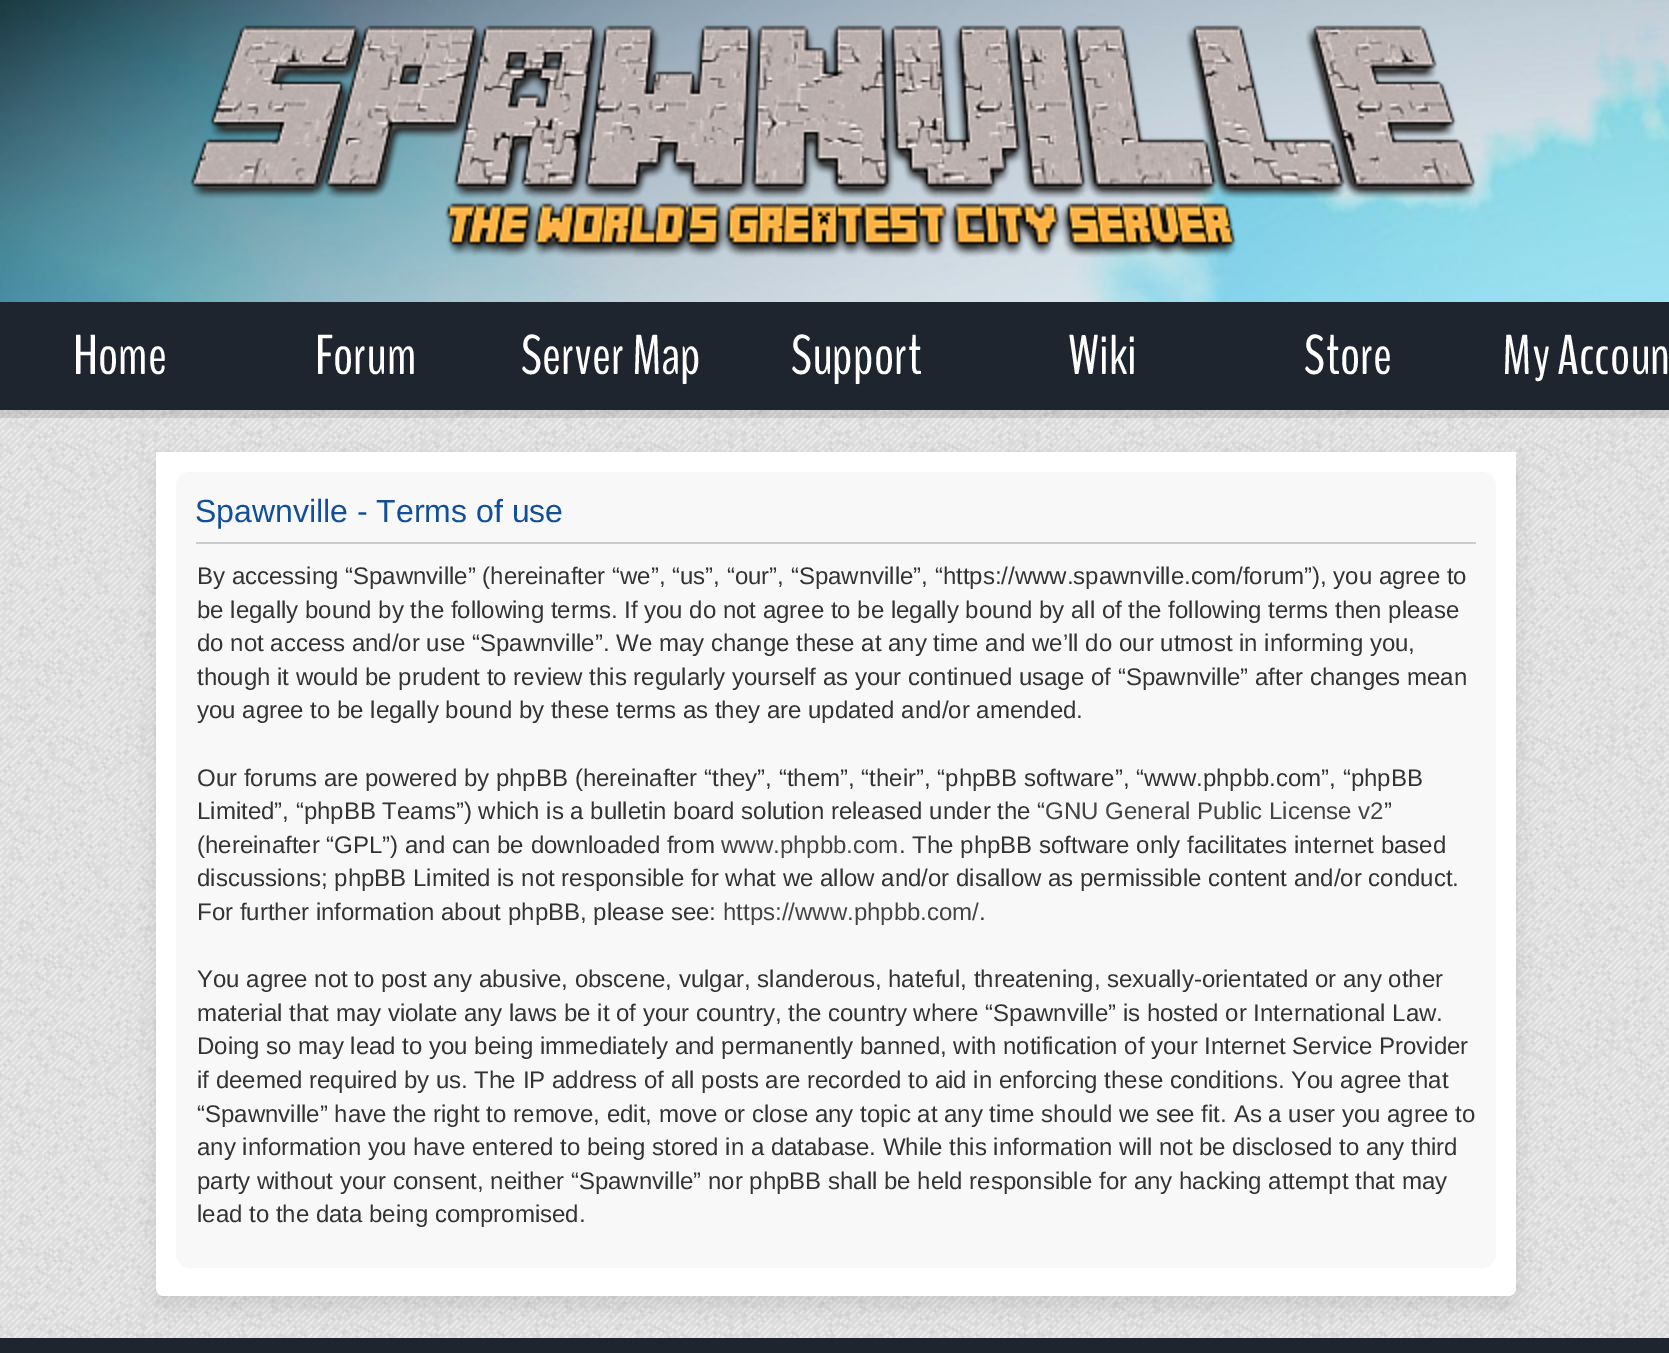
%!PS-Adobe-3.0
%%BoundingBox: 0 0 1669 1353
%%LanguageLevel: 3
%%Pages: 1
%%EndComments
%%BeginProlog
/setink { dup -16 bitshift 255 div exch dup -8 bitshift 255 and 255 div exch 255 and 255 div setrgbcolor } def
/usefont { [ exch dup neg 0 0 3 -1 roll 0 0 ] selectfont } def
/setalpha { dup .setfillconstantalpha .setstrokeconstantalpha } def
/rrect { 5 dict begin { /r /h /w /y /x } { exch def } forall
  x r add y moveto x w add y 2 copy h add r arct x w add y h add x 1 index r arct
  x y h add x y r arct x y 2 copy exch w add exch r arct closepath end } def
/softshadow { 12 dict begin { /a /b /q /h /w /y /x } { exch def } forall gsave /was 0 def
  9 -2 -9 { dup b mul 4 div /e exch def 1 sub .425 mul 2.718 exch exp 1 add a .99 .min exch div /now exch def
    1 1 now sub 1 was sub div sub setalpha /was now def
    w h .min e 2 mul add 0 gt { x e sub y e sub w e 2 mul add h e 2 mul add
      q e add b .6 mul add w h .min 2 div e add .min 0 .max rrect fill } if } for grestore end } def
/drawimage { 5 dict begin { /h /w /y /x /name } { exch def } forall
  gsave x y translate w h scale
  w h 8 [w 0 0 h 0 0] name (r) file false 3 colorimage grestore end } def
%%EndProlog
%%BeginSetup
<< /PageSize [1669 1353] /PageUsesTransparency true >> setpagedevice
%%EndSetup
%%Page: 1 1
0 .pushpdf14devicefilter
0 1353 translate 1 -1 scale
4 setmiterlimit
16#FFFFFF setink
0 0 1669 1353 rectfill
(img1.raw) 0 410 1669 928 drawimage
(img2.raw) 0 0 1669 302 drawimage
(img3.raw) 189 25 1288 233 drawimage
0.1 setalpha
16#000000 setink
0 410 1669 8 rectfill
1 setalpha
16#1E252F setink
0 302 1669 108 rectfill
/BenchNine-Regular 56 usefont
16#FFFFFF setink
[
    [(Home) 73 374]
    [(Forum) 315 374]
    [(Server Map) 521 374]
    [(Support) 791 374]
    [(Wiki) 1068 374]
    [(Store) 1304 374]
    [(My Accoun) 1502 374]
] { aload pop moveto show } forall
16#000000 setink
156 462 1360 844 8 9 0.1 softshadow
16#FFFFFF setink
156 452 moveto 1516 452 lineto 1516 1288 lineto 1516 1292.5 1512.5 1296 1508 1296 curveto 164 1296 lineto 159.5 1296 156 1292.5 156 1288 curveto closepath fill
16#F8F8F8 setink
176 472 1320 796 14 rrect fill
16#CCCCCC setink
196 542 1280 2 rectfill
/LiberationSans-Regular 32 usefont
16#115098 setink
195 522 moveto (Spawnville - Terms of use) show
/LiberationSans-Regular 24 usefont
16#333333 setink
[
    [(By accessing “Spawnville” \(hereinafter “we”, “us”, “our”, “Spawnville”, “https://www.spawnville.com/forum”\), you agree to) 197 584]
    [(be legally bound by the following terms. If you do not agree to be legally bound by all of the following terms then please) 197 618]
    [(do not access and/or use “Spawnville”. We may change these at any time and we’ll do our utmost in informing you,) 197 651]
    [(though it would be prudent to review this regularly yourself as your continued usage of “Spawnville” after changes mean) 197 685]
    [(you agree to be legally bound by these terms as they are updated and/or amended.) 197 718]
    [(Our forums are powered by phpBB \(hereinafter “they”, “them”, “their”, “phpBB software”, “www.phpbb.com”, “phpBB) 197 786]
    [(Limited”, “phpBB Teams”\) which is a bulletin board solution released under the “) 197 819]
] { aload pop moveto show } forall
16#444444 setink
1045 819 moveto (GNU General Public License v2) show
16#333333 setink
1384 819 moveto (”) show
197 853 moveto (\(hereinafter “GPL”\) and can be downloaded from) show
16#444444 setink
721 853 moveto (www.phpbb.com) show
16#333333 setink
[
    [(. The phpBB software only facilitates internet based) 899 853]
    [(discussions; phpBB Limited is not responsible for what we allow and/or disallow as permissible content and/or conduct.) 197 886]
    [(For further information about phpBB, please see:) 197 920]
] { aload pop moveto show } forall
16#444444 setink
723 920 moveto (https://www.phpbb.com/) show
16#333333 setink
[
    [(.) 979 920]
    [(You agree not to post any abusive, obscene, vulgar, slanderous, hateful, threatening, sexually-orientated or any other) 197 987]
    [(material that may violate any laws be it of your country, the country where “Spawnville” is hosted or International Law.) 197 1021]
    [(Doing so may lead to you being immediately and permanently banned, with notification of your Internet Service Provider) 197 1054]
    [(if deemed required by us. The IP address of all posts are recorded to aid in enforcing these conditions. You agree that) 197 1088]
    [(“Spawnville” have the right to remove, edit, move or close any topic at any time should we see fit. As a user you agree to) 197 1122]
    [(any information you have entered to being stored in a database. While this information will not be disclosed to any third) 197 1155]
    [(party without your consent, neither “Spawnville” nor phpBB shall be held responsible for any hacking attempt that may) 197 1189]
    [(lead to the data being compromised.) 197 1222]
] { aload pop moveto show } forall
16#1E252F setink
0 1338 1669 15 rectfill
.poppdf14devicefilter showpage
%%EOF
